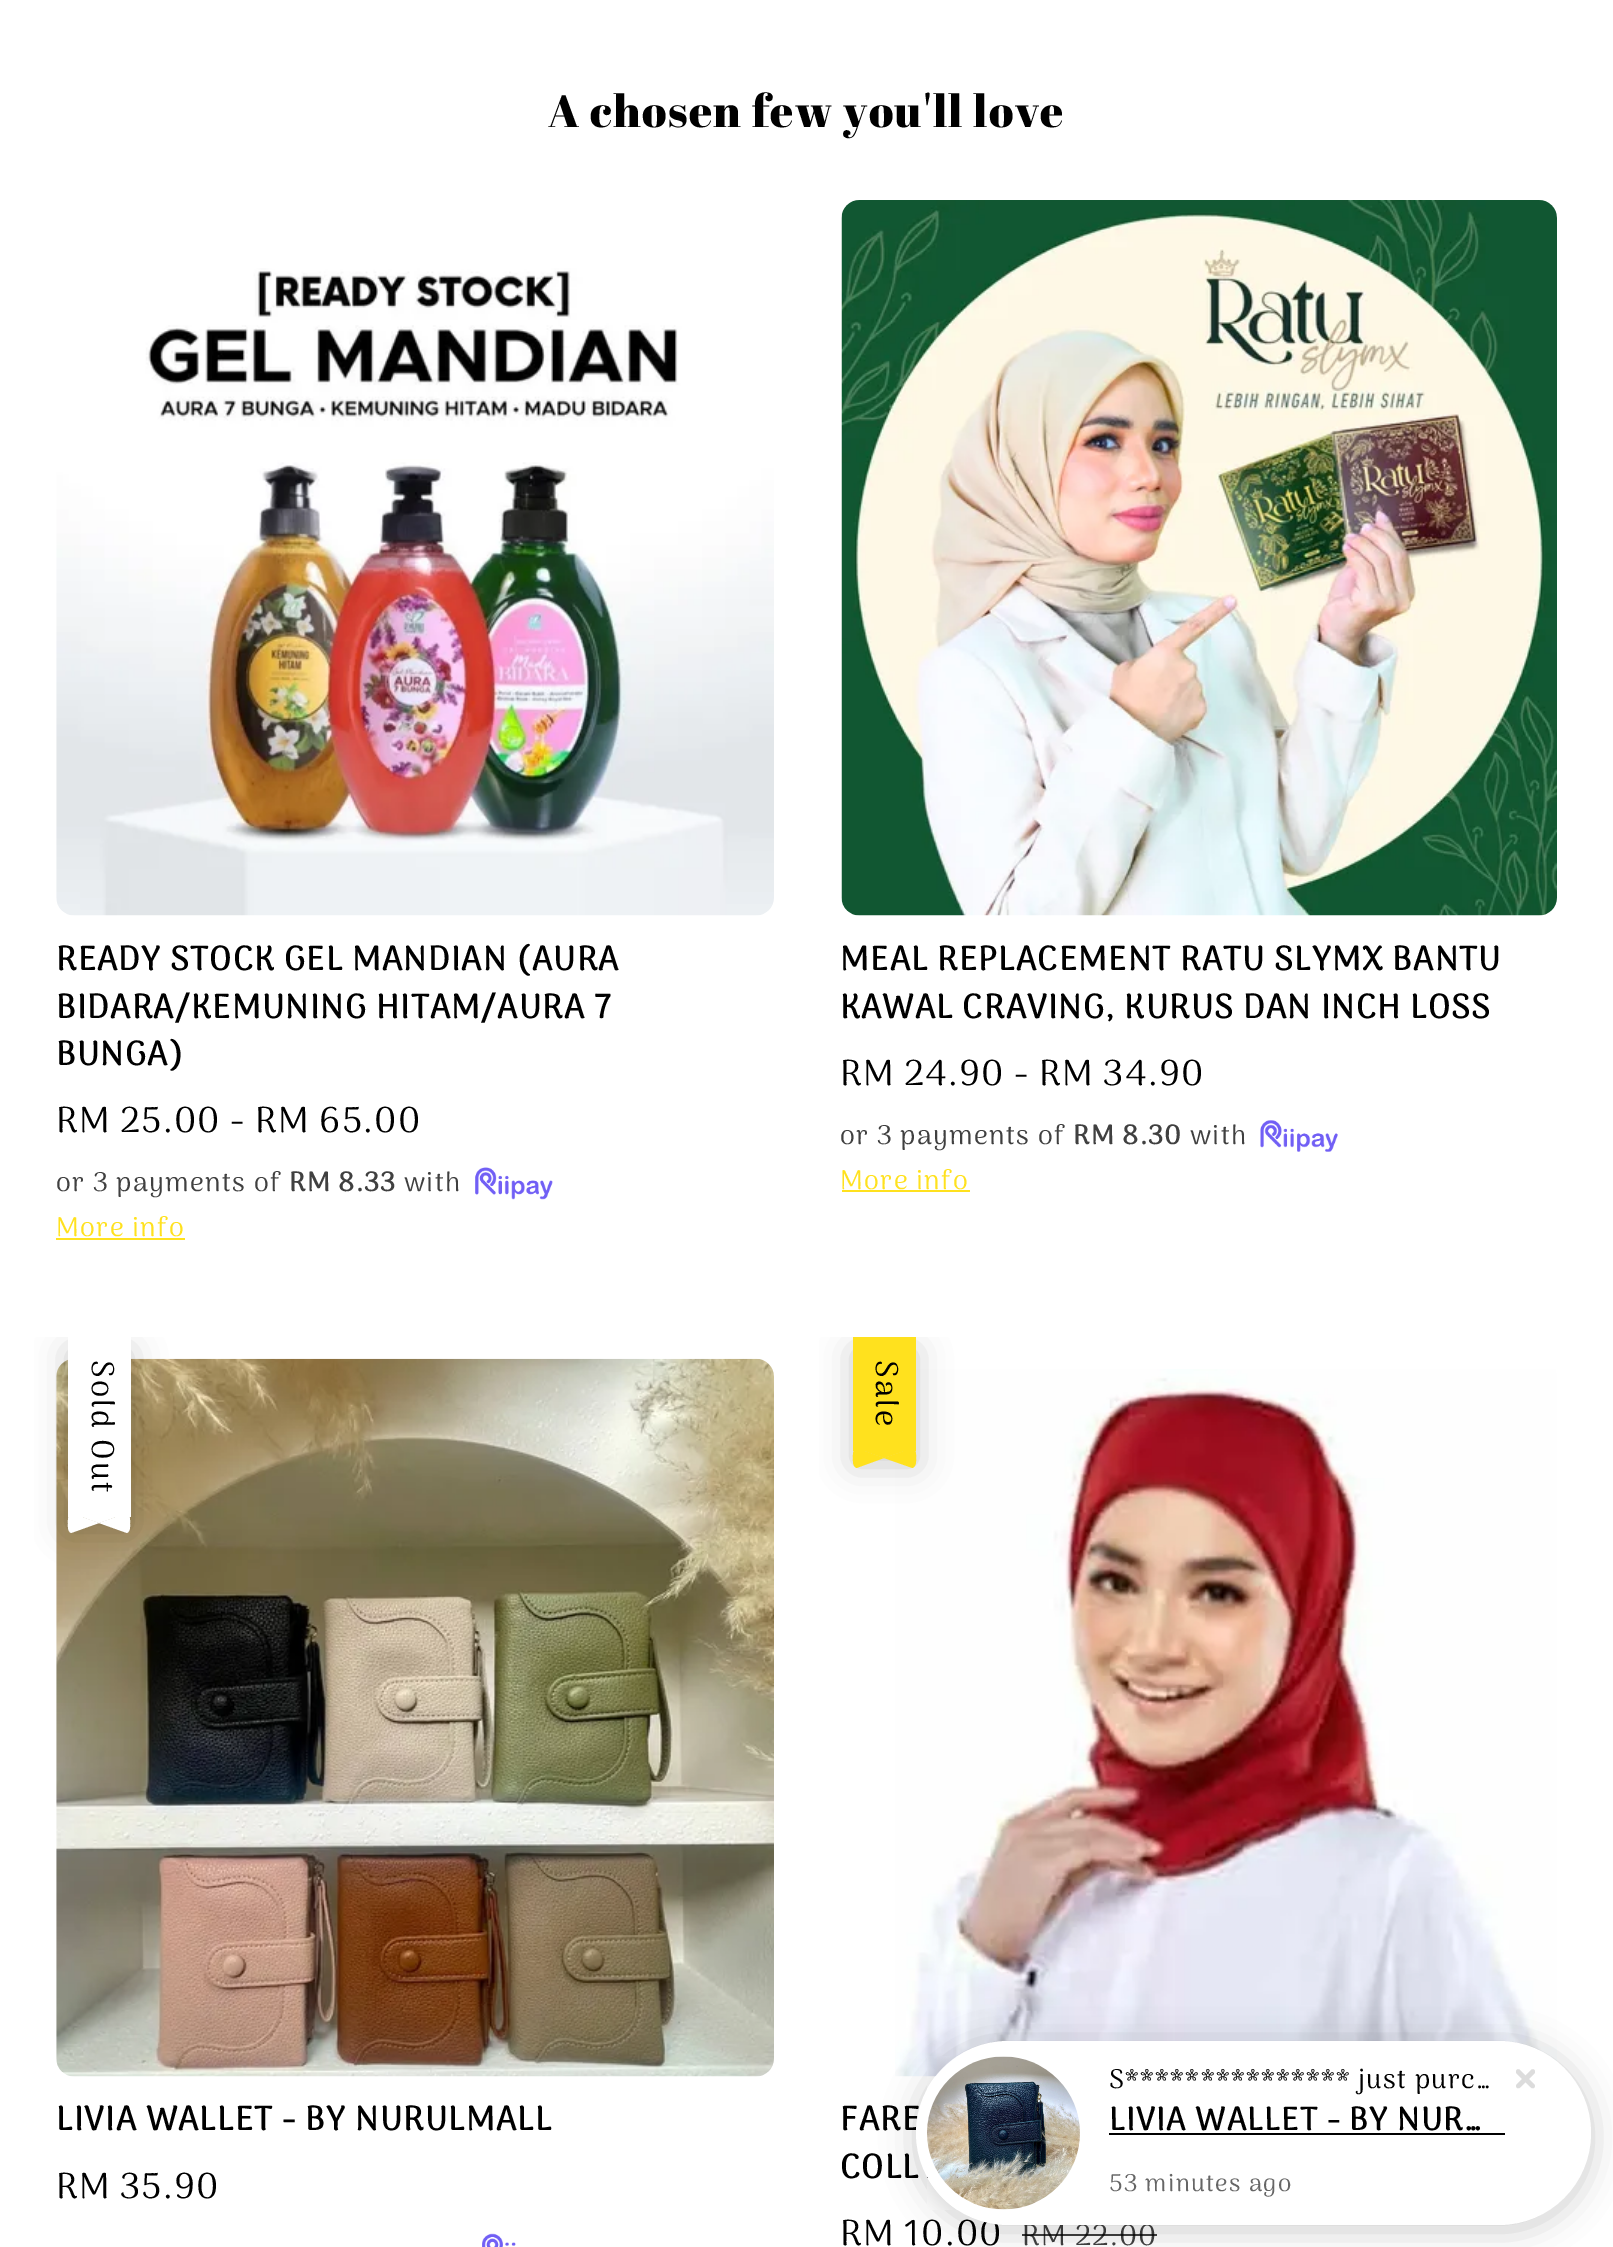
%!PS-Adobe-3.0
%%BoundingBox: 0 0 1613 2247
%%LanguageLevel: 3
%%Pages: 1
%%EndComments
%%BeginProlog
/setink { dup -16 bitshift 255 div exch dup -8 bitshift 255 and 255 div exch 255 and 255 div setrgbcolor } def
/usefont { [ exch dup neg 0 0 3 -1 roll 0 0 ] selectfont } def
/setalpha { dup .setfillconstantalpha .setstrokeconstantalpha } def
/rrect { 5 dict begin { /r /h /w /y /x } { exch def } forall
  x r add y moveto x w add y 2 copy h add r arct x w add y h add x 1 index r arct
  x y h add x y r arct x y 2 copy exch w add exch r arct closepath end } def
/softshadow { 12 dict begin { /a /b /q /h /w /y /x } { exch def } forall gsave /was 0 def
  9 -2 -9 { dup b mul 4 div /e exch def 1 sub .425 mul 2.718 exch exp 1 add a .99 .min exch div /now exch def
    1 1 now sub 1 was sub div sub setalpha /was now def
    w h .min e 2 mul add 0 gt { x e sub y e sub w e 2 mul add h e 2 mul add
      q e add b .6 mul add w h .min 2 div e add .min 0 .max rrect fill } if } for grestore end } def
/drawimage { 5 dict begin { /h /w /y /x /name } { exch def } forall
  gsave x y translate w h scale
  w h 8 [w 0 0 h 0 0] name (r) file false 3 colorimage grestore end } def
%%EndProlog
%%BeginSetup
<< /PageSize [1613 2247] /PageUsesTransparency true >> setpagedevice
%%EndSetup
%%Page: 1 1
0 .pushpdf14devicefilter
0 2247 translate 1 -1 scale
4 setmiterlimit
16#FFFFFF setink
0 0 1613 2247 rectfill
/AbrilFatface-Regular 45 usefont
16#000000 setink
548 127 moveto 1.35 0 (A chosen few you'll love) ashow
(img1.raw) 56 268 718 648 drawimage
/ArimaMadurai-Bold 33.75 usefont
56 970 moveto 1.35 0 (READY STOCK GEL MANDIAN \(AURA) ashow
56 1018 moveto 1.35 0 (BIDARA/KEMUNING HITAM/AURA 7) ashow
56 1065 moveto 1.35 0 (BUNGA\)) ashow
/ArimaMadurai-Regular 36 usefont
56 1132 moveto 1.35 0 (RM 25.00 - RM 65.00) ashow
/ArimaMadurai-Regular 27 usefont
16#404040 setink
56 1191 moveto 1.35 0 (or 3 payments of) ashow
/ArimaMadurai-Bold 27 usefont
289 1191 moveto 1.35 0 (RM 8.33) ashow
/ArimaMadurai-Regular 27 usefont
404 1191 moveto 1.35 0 (with) ashow
(img2.raw) 475 1167 78 33 drawimage
16#FFE11E setink
56 1236 moveto 1.35 0 (More info) ashow
56 1238 129 2 rectfill
(img3.raw) 841 200 716 716 drawimage
/ArimaMadurai-Bold 33.75 usefont
16#000000 setink
840 970 moveto 1.35 0 (MEAL REPLACEMENT RATU SLYMX BANTU) ashow
840 1018 moveto 1.35 0 (KAWAL CRAVING, KURUS DAN INCH LOSS) ashow
/ArimaMadurai-Regular 36 usefont
840 1085 moveto 1.35 0 (RM 24.90 - RM 34.90) ashow
/ArimaMadurai-Regular 27 usefont
16#404040 setink
840 1144 moveto 1.35 0 (or 3 payments of) ashow
/ArimaMadurai-Bold 27 usefont
1073 1144 moveto 1.35 0 (RM 8.30) ashow
/ArimaMadurai-Regular 27 usefont
1190 1144 moveto 1.35 0 (with) ashow
(img4.raw) 1260 1120 78 32 drawimage
16#FFE11E setink
840 1189 moveto 1.35 0 (More info) ashow
842 1190 128 2 rectfill
(img5.raw) 56 1358 718 719 drawimage
gsave
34 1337 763 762 rectclip
16#000000 setink
68 1350 63 180 0 17 0.2 softshadow
grestore
16#FFFFFF setink
68 1337 63 180 rectfill
/ArimaMadurai-Regular 31.5 usefont
16#000000 setink
gsave 92 1360 translate 90 rotate 0 0 moveto 2.25 0 (Sold Out) ashow grestore
16#FFFFFF setink
74 1512 moveto 124 1512 lineto 125 1512 126 1512 127 1513 curveto 99 1523 lineto 71 1513 lineto closepath fill
127 1513 moveto 130.5 1515.5 130 1520 130 1523.5 curveto 130 1527 130.5 1531 127 1533 curveto 99 1523 lineto closepath fill
71 1513 moveto 99 1523 lineto 71 1533 lineto 67.5 1531 68 1527 68 1523.5 curveto 68 1520 67.5 1515.5 71 1513 curveto closepath fill
/ArimaMadurai-Bold 33.75 usefont
16#000000 setink
56 2130 moveto 1.35 0 (LIVIA WALLET - BY NURULMALL) ashow
/ArimaMadurai-Regular 36 usefont
56 2198 moveto 1.35 0 (RM 35.90) ashow
(img6.raw) 482 2233 34 14 drawimage
(img7.raw) 895 1369 662 708 drawimage
gsave
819 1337 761 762 rectclip
853 1350 63 115 0 17 0.2 softshadow
grestore
16#FFE11E setink
853 1337 63 114 rectfill
/ArimaMadurai-Regular 31.5 usefont
16#000000 setink
gsave 876 1360 translate 90 rotate 0 0 moveto 2.25 0 (Sale) ashow grestore
16#FFE11E setink
860 1447 moveto 909 1447 lineto 913 1448 lineto 884 1458 lineto 856 1448 lineto closepath fill
912.5 1448 moveto 916.5 1450 916 1454 916 1458 curveto 916 1462 916.5 1466 912.5 1468 curveto 884 1458 lineto closepath fill
856.5 1448 moveto 884 1458 lineto 856.5 1468 lineto 852.5 1466 853 1461.5 853 1458 curveto 853 1454.5 852.5 1450 856.5 1448 curveto closepath fill
/ArimaMadurai-Bold 33.75 usefont
16#000000 setink
840 2130 moveto 1.35 0 (FARE) ashow
840 2178 moveto 1.35 0 (COLL) ashow
/ArimaMadurai-Regular 36 usefont
840 2245 moveto 1.35 0 (RM 10.00) ashow
/ArimaMadurai-Regular 29.25 usefont
16#404040 setink
1022 2245 moveto 1.35 0 (RM 22.00) ashow
0.75 setalpha
16#000000 setink
1022 2234 135 2 rectfill
1 setalpha
916 2045 675 185 92.5 17 0.2 softshadow
16#FFFFFF setink
916 2041 675 184 92 rrect fill
(img8.raw) 927 2056 153 154 drawimage
/ArimaMadurai-Regular 27 usefont
16#000000 setink
1109 2088 moveto 1.35 0 (S*************** just purc…) ashow
/ArimaMadurai-Bold 32.4 usefont
1109 2130 moveto 1.35 0 (LIVIA WALLET - BY NUR…) ashow
1109 2133 396 2 rectfill
/ArimaMadurai-Regular 24.25 usefont
16#666666 setink
1109 2191 moveto 1.35 0 (53 minutes ago) ashow
16#DCDCDC setink
1534.5 2070 moveto 1535 2071 1535 2072.5 1534.5 2073.5 curveto 1520 2087.5 lineto 1519 2088.5 1517.5 2088.5 1516.5 2087.5 curveto 1516 2086.5 1516 2085.5 1516.5 2084.5 curveto 1531 2070 lineto 1532 2069 1533.5 2069 1534.5 2070 curveto closepath fill
1516.5 2070 moveto 1517.5 2069 1519 2069 1520 2070 curveto 1534.5 2084.5 lineto 1535 2085.5 1535 2086.5 1534.5 2087.5 curveto 1533.5 2088.5 1532 2088.5 1531 2087.5 curveto 1516.5 2073.5 lineto 1516 2072.5 1516 2071 1516.5 2070 curveto closepath fill
.poppdf14devicefilter showpage
%%EOF
